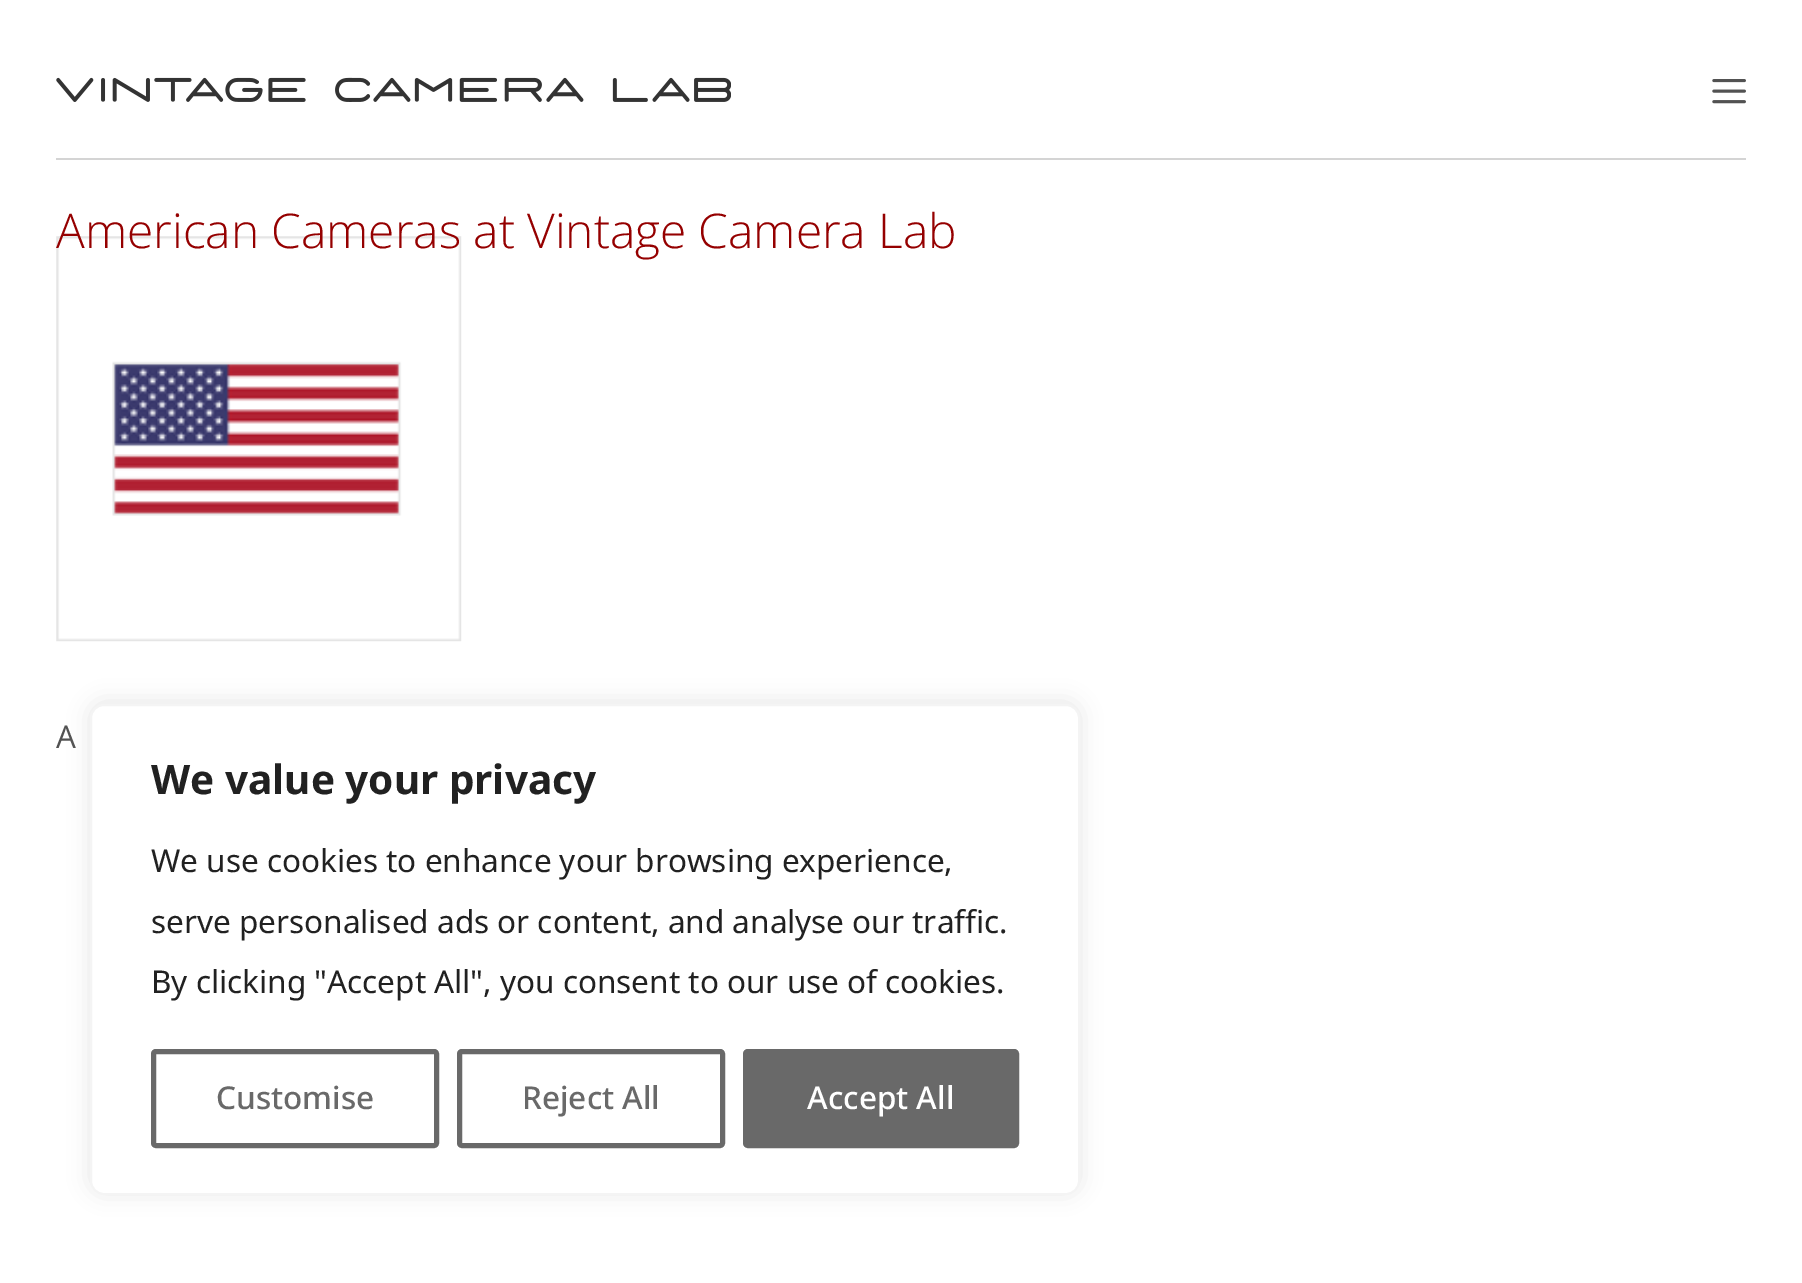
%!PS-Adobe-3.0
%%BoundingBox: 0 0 1802 1283
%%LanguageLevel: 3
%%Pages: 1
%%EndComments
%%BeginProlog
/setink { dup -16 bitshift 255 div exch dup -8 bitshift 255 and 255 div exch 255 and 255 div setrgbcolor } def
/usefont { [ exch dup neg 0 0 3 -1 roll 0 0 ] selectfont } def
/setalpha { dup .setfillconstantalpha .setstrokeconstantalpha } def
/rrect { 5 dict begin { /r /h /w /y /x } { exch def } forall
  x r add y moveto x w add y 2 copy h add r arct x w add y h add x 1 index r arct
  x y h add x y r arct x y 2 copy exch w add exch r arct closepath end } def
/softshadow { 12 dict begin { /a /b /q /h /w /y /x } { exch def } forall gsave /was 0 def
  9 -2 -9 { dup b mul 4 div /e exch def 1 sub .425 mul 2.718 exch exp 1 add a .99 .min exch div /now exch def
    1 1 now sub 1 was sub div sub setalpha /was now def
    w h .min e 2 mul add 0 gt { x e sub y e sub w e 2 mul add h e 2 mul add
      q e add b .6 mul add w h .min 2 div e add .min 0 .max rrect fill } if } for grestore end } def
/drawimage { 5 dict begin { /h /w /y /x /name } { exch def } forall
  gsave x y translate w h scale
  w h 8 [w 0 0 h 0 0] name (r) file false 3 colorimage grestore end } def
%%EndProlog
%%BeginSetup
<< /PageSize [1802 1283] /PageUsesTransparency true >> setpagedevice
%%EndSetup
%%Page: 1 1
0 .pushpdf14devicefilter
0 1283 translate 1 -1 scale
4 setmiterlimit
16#FFFFFF setink
0 0 1802 1283 rectfill
16#D4D4D4 setink
56 158 1690 2 rectfill
(img1.raw) 56 77 675 25 drawimage
(img2.raw) 1712 79 34 25 drawimage
(img3.raw) 56 236 406 406 drawimage
/OpenSans-Light 47.8 usefont
16#950000 setink
56 248 moveto (American Cameras at Vintage Camera Lab) show
/OpenSans-Regular 31.5 usefont
16#525252 setink
56 748 moveto (A) show
16#ACABAB setink
90 702 990 491 14 11 0.3 softshadow
16#FFFFFF setink
91 705 988 489 13 rrect gsave fill grestore
16#F4F4F4 setink
2 setlinewidth
stroke
/NotoSans-Bold 40.5 usefont
16#212121 setink
151 794 moveto (We value your privacy) show
/NotoSans-Regular 31.5 usefont
[
    [(We use cookies to enhance your browsing experience,) 151 872]
    [(serve personalised ads or content, and analyse our traffic.) 151 933]
    [(By clicking "Accept All", you consent to our use of cookies.) 151 993]
] { aload pop moveto show } forall
16#696969 setink
5 setlinewidth
153.5 1051.5 283 94 2.5 rrect stroke
/NotoSans-Medium 31.5 usefont
216 1109 moveto (Customise) show
459.5 1051.5 263 94 2.5 rrect stroke
522 1109 moveto (Reject All) show
745.5 1051.5 271 94 2.5 rrect gsave fill grestore
stroke
16#FFFFFF setink
807 1109 moveto (Accept All) show
.poppdf14devicefilter showpage
%%EOF
